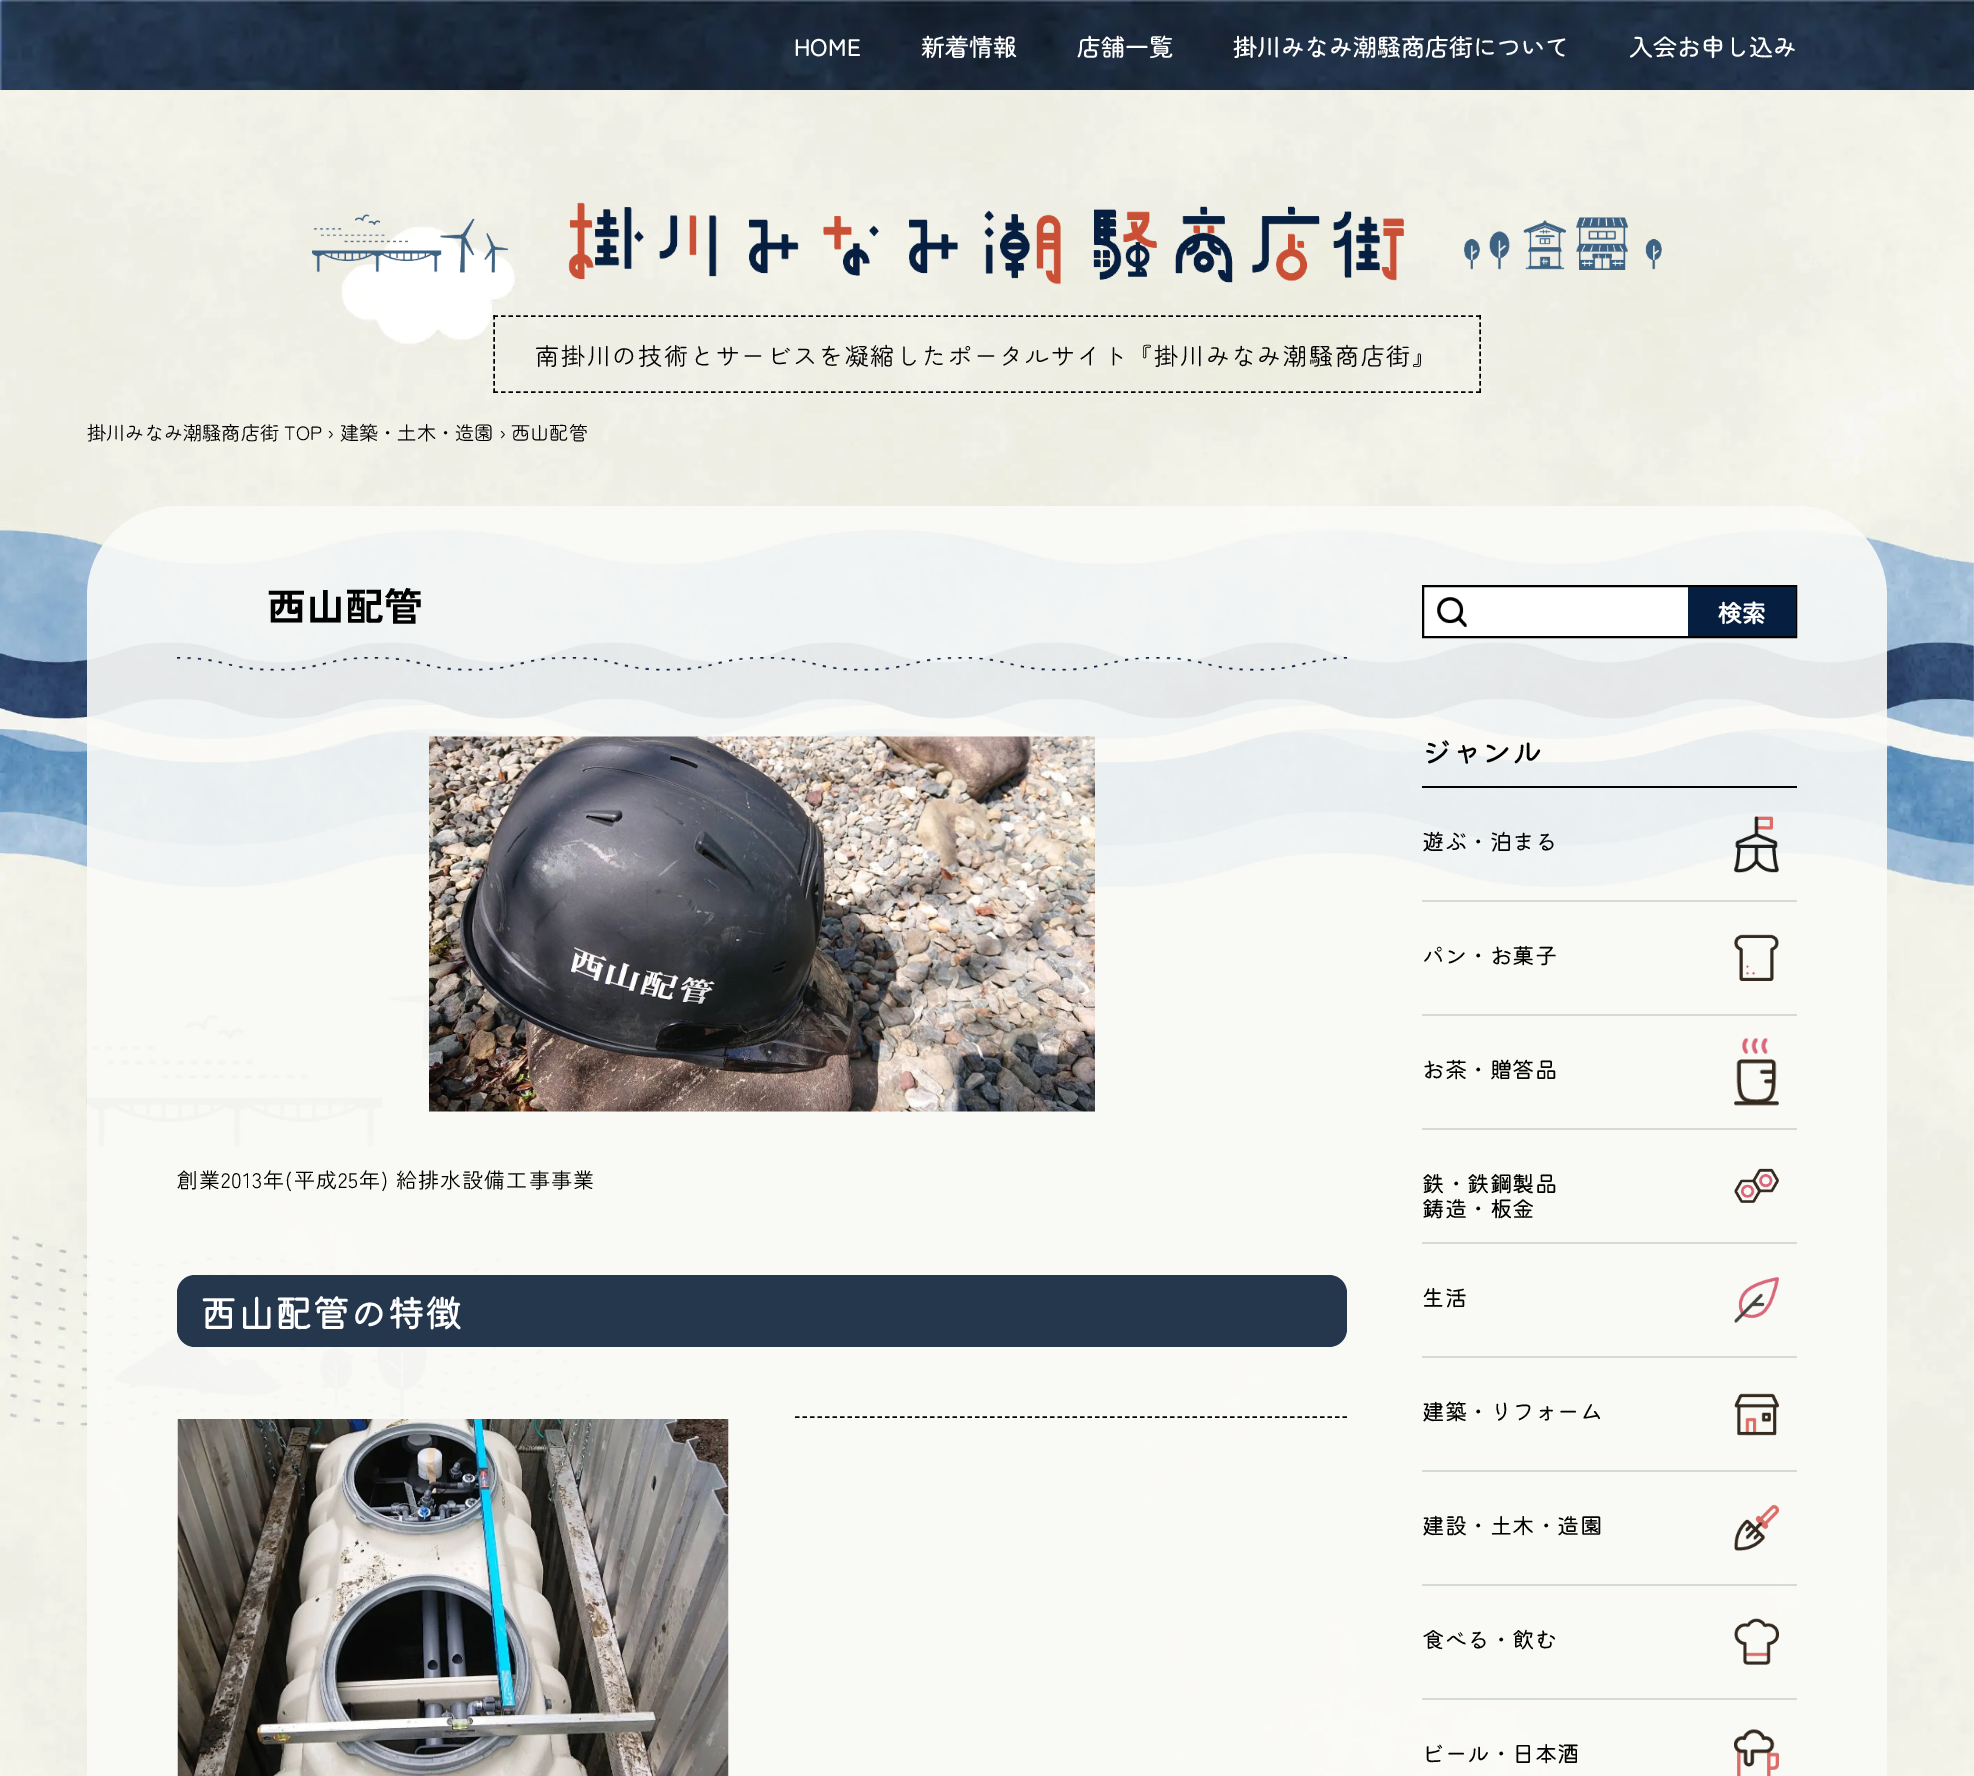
%!PS-Adobe-3.0
%%BoundingBox: 0 0 1974 1776
%%LanguageLevel: 3
%%Pages: 1
%%EndComments
%%BeginProlog
/setink { dup -16 bitshift 255 div exch dup -8 bitshift 255 and 255 div exch 255 and 255 div setrgbcolor } def
/usefont { [ exch dup neg 0 0 3 -1 roll 0 0 ] selectfont } def
/setalpha { dup .setfillconstantalpha .setstrokeconstantalpha } def
/rrect { 5 dict begin { /r /h /w /y /x } { exch def } forall
  x r add y moveto x w add y 2 copy h add r arct x w add y h add x 1 index r arct
  x y h add x y r arct x y 2 copy exch w add exch r arct closepath end } def
/drawimage { 5 dict begin { /h /w /y /x /name } { exch def } forall
  gsave x y translate w h scale
  w h 8 [w 0 0 h 0 0] name (r) file false 3 colorimage grestore end } def
%%EndProlog
%%BeginSetup
<< /PageSize [1974 1776] /PageUsesTransparency true >> setpagedevice
%%EndSetup
%%Page: 1 1
0 .pushpdf14devicefilter
0 1776 translate 1 -1 scale
4 setmiterlimit
16#FFFFFF setink
0 0 1974 1776 rectfill
(img1.raw) 0 0 1974 90 drawimage
/ZenMaruGothic-Medium 24 usefont
[
    [(HOME) 794 56]
    [(新着情報) 921 56]
    [(店舗一覧) 1077 56]
    [(掛川みなみ潮騒商店街について) 1233 56]
    [(入会お申し込み) 1629 56]
] { aload pop moveto show } forall
(img2.raw) 0 90 1974 1686 drawimage
(img3.raw) 312 214 197 59 drawimage
(img4.raw) 568 202 836 83 drawimage
(img5.raw) 1464 217 198 53 drawimage
16#000000 setink
1.5 setlinewidth
[4.5 3] 0 setdash
493.5 316 moveto 1480.5 316 lineto stroke
[4.5 2.85] 0 setdash
1480 315 moveto 1480 393 lineto stroke
[4.5 3] 0 setdash
493.5 392 moveto 1480.5 392 lineto stroke
[4.5 2.85] 0 setdash
494 315 moveto 494 393 lineto stroke
/ZenMaruGothic-Regular 24 usefont
535 365 moveto 1.8 0 (南掛川の技術とサービスを凝縮したポータルサイト『掛川みなみ潮騒商店街』) ashow
/ZenMaruGothic-Regular 19.2 usefont
87 440 moveto (掛川みなみ潮騒商店街 TOP › 建築・土木・造園 › 西山配管) show
0.9 setalpha
16#FAFAF7 setink
87 506 1800 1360 90 rrect fill
/ZenKakuGothicAntique-Bold 39 usefont
1 setalpha
16#000000 setink
267 621 moveto (西山配管) show
(img6.raw) 177 657 1170 14 drawimage
(img7.raw) 429 736 666 376 drawimage
/ZenKakuGothicAntique-Regular 21 usefont
177 1188 moveto 1.05 0 (創業2013年\(平成25年\) 給排水設備工事事業) ashow
16#24374D setink
177 1275 1170 72 18 rrect fill
/KiwiMaru-Medium 37.5 usefont
16#FFFFFF setink
200 1327 moveto (西山配管の特徴) show
16#000000 setink
[4.5 3] 0 setdash
795 1417 moveto 1347 1417 lineto stroke
(img8.raw) 177 1419 552 357 drawimage
16#FFFFFF setink
1424 587 264 49 rectfill
16#000000 setink
2 setlinewidth
[] 0 setdash
1423 586 373 51 rectstroke
(img9.raw) 1437 597 30 30 drawimage
16#061F40 setink
1688 587 108 49 rectfill
/ZenMaruGothic-Bold 24 usefont
16#FFFFFF setink
1718 622 moveto (検索) show
16#000000 setink
1422 786 375 2 rectfill
/KiwiMaru-Medium 30 usefont
1422 763 moveto (ジャンル) show
16#D4DAD4 setink
1422 900 375 2 rectfill
/KiwiMaru-Regular 22.5 usefont
16#000000 setink
1422 850 moveto (遊ぶ・泊まる) show
(img10.raw) 1734 816 45 57 drawimage
16#D4DAD4 setink
1422 1014 375 2 rectfill
16#000000 setink
1422 964 moveto (パン・お菓子) show
(img11.raw) 1734 934 45 47 drawimage
16#D4DAD4 setink
1422 1128 375 2 rectfill
16#000000 setink
1422 1078 moveto (お茶・贈答品) show
(img12.raw) 1734 1038 45 68 drawimage
16#D4DAD4 setink
1422 1242 375 2 rectfill
16#000000 setink
1422 1192 moveto (鉄・鉄鋼製品) show
1422 1217 moveto (鋳造・板金) show
(img13.raw) 1734 1168 45 35 drawimage
16#D4DAD4 setink
1422 1356 375 2 rectfill
16#000000 setink
1422 1306 moveto (生活) show
(img14.raw) 1734 1277 45 46 drawimage
16#D4DAD4 setink
1422 1470 375 2 rectfill
16#000000 setink
1422 1420 moveto (建築・リフォーム) show
(img15.raw) 1734 1393 45 43 drawimage
16#D4DAD4 setink
1422 1584 375 2 rectfill
16#000000 setink
1422 1534 moveto (建設・土木・造園) show
(img16.raw) 1734 1504 45 47 drawimage
16#D4DAD4 setink
1422 1698 375 2 rectfill
16#000000 setink
1422 1648 moveto (食べる・飲む) show
(img17.raw) 1734 1618 45 47 drawimage
1422 1762 moveto (ビール・日本酒) show
(img18.raw) 1734 1729 45 47 drawimage
.poppdf14devicefilter showpage
%%EOF
